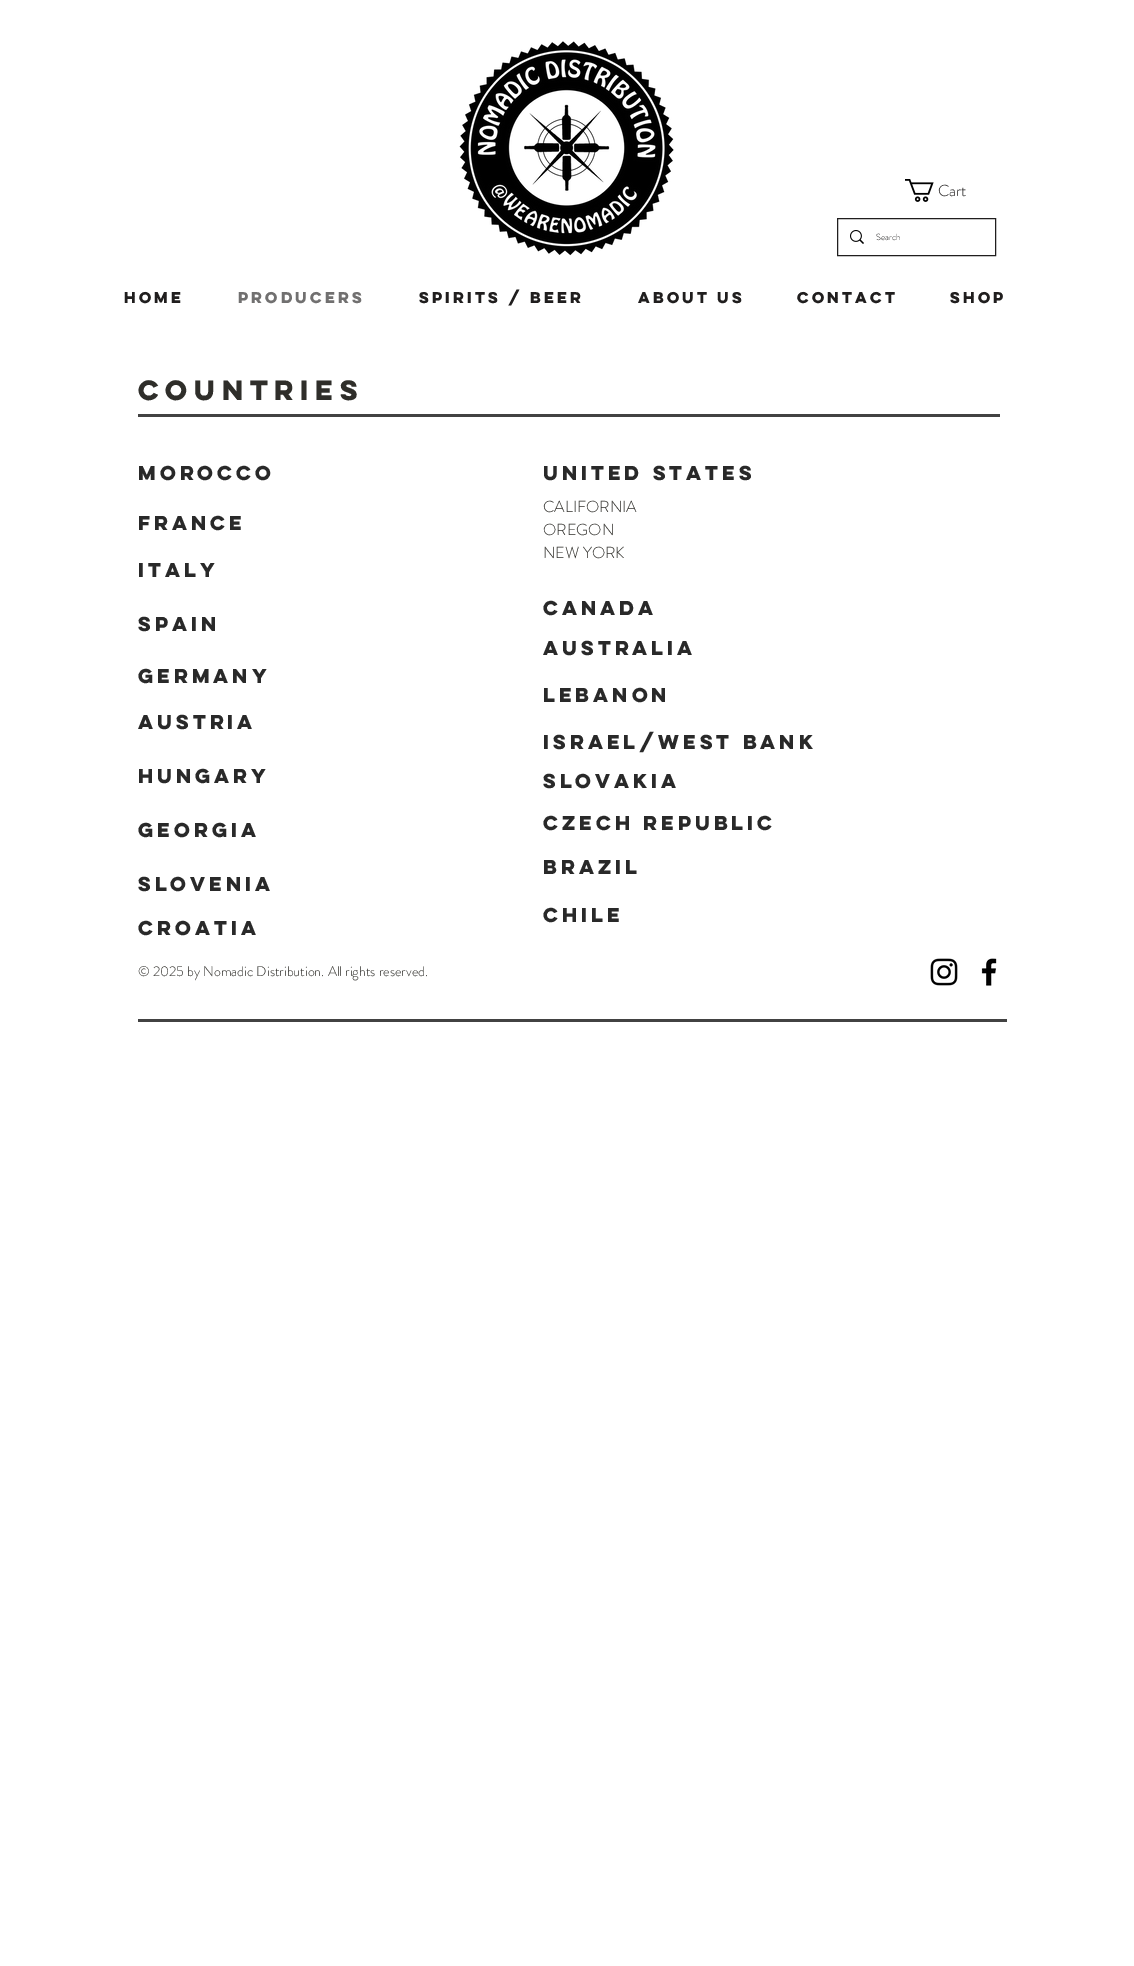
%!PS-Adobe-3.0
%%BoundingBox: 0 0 1134 1966
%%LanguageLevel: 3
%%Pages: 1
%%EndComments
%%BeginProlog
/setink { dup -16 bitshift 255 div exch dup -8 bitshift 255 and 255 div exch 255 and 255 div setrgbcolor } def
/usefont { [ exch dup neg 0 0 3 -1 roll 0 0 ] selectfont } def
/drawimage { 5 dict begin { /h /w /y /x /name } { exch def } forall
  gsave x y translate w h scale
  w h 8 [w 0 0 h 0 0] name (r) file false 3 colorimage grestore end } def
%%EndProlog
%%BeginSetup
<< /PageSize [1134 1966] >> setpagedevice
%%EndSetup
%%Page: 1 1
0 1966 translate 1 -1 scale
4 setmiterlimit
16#FFFFFF setink
0 0 1134 1966 rectfill
(img1.raw) 459 41 215 215 drawimage
(img2.raw) 905 179 29 23 drawimage
/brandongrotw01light-Light 16 usefont
16#201E1E setink
938 196 moveto (Cart) show
837.5 218.5 158 37 rectstroke
(img3.raw) 850 230 14 14 drawimage
/brandongrotw01light-Light 9 usefont
876 240 moveto (Search) show
/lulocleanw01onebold-Bold 14 usefont
124 303 moveto (Home) show
16#717070 setink
238 303 moveto (Producers) show
16#201E1E setink
[
    [(Spirits / Beer) 419 303]
    [(About Us) 638 303]
    [(Contact) 797 303]
    [(Shop) 950 303]
] { aload pop moveto show } forall
/lulocleanw01onebold-Bold 25 usefont
16#2F2E2A setink
138 400 moveto 1.25 0 (COUNTRIES) ashow
16#424242 setink
138 414 862 3 rectfill
/lulocleanw01onebold-Bold 18 usefont
16#292929 setink
138 480 moveto (MOROCCO) show
543 480 moveto (UNITED STATES) show
/brandongrotw01light-Light 16 usefont
16#2F2E2A setink
543 512 moveto (CALIFORNIA) show
/lulocleanw01onebold-Bold 18 usefont
16#292929 setink
138 530 moveto (FRANCE) show
/brandongrotw01light-Light 16 usefont
16#2F2E2A setink
543 535 moveto (OREGON) show
543 558 moveto (NEW YORK) show
/lulocleanw01onebold-Bold 18 usefont
16#292929 setink
[
    [(ITALY) 138 577]
    [(CANADA) 543 615]
    [(SPAIN) 138 631]
    [(AUSTRALIA) 543 655]
    [(GERMANY) 138 683]
    [(LEBANON) 543 702]
    [(AUSTRIA) 138 729]
    [(ISRAEL/WEST BANK) 543 749]
    [(HUNGARY) 138 783]
    [(SLOVAKIA) 543 788]
    [(GEORGIA) 138 837]
    [(Czech Republic) 543 830]
    [(BRAZIL) 543 874]
    [(SLOVENIA) 138 891]
    [(CHILE) 543 922]
    [(CROATIA) 138 935]
] { aload pop moveto show } forall
/brandongrotw01light-Light 14 usefont
16#2F2E2A setink
138 976 moveto (© 2025 by Nomadic Distribution. All rights reserved.) show
(img4.raw) 930 958 28 28 drawimage
(img5.raw) 981 958 16 28 drawimage
16#424242 setink
138 1019 869 3 rectfill
showpage
%%EOF
